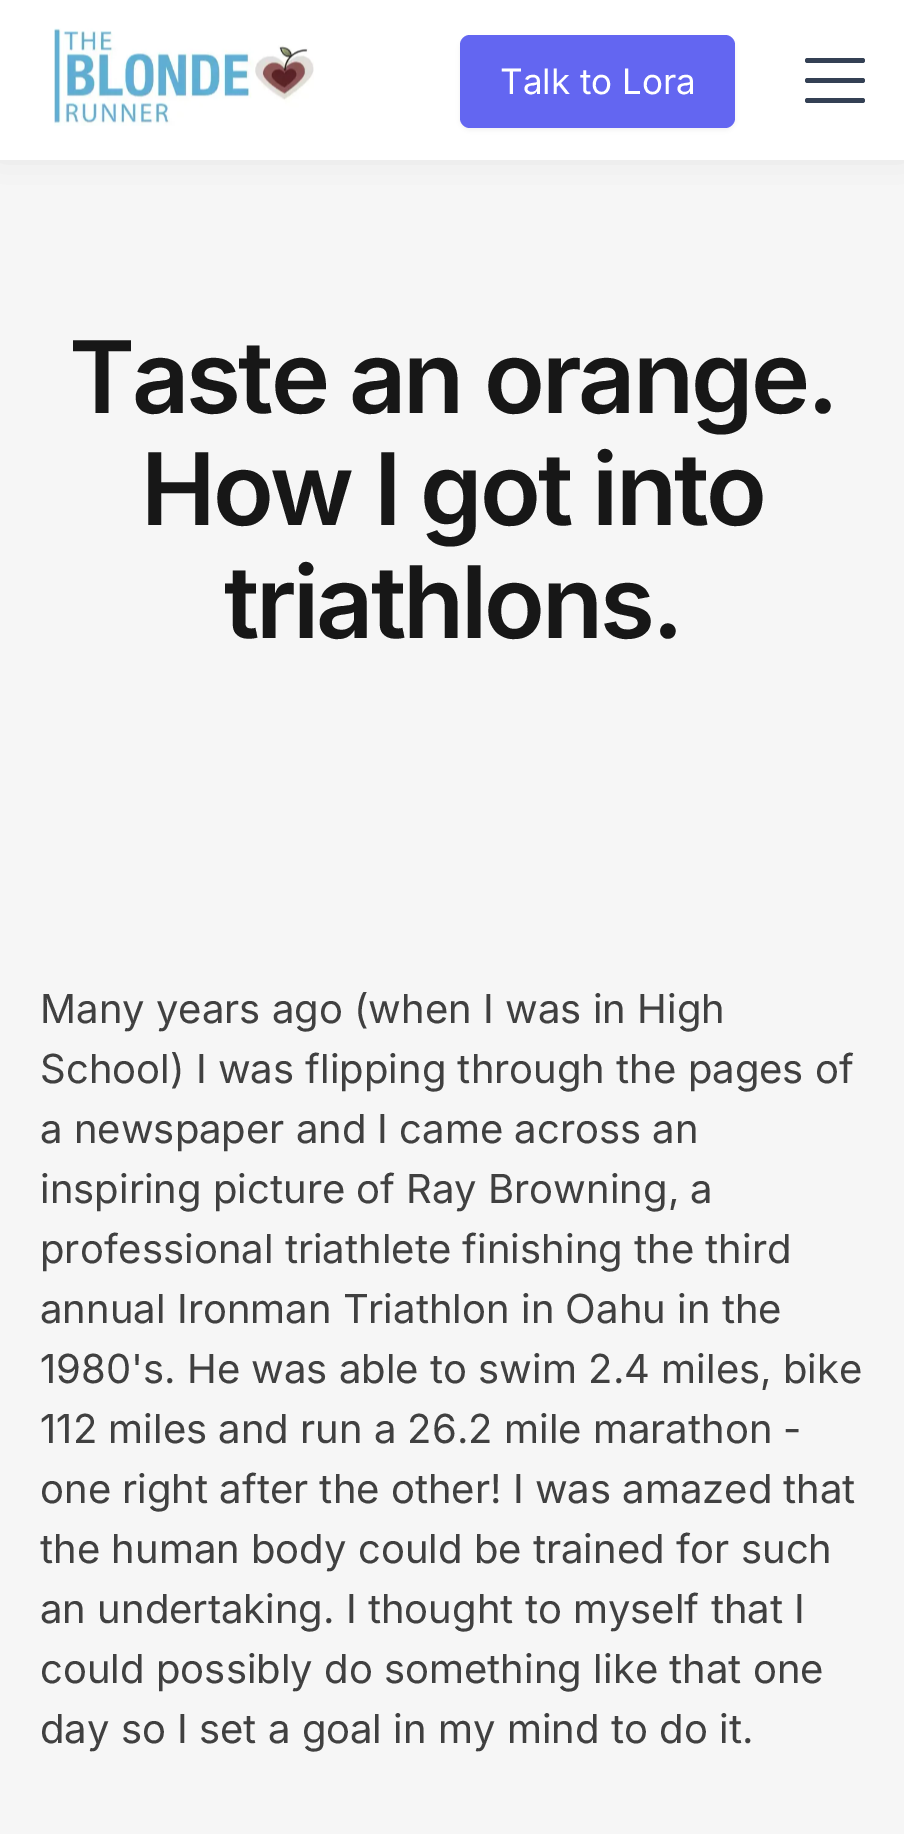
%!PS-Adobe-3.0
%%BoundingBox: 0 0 904 1834
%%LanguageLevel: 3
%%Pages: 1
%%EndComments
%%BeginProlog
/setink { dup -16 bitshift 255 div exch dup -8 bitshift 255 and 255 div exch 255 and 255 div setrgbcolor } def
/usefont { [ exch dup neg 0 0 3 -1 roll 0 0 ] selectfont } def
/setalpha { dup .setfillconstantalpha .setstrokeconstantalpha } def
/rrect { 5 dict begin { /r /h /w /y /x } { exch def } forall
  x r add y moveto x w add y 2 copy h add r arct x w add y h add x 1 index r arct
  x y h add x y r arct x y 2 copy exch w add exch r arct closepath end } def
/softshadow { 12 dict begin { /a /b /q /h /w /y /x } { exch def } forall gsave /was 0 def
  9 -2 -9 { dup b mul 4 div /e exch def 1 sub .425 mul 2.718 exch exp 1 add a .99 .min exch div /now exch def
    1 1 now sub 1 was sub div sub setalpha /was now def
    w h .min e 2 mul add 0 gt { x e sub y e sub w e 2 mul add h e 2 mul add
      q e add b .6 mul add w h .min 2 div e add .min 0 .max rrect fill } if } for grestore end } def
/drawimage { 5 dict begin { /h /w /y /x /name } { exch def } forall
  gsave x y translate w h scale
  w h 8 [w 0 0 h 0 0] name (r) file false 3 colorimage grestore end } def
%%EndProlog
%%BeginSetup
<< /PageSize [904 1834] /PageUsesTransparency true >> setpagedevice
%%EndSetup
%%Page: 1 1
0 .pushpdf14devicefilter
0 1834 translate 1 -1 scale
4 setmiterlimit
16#F6F6F6 setink
0 0 904 1834 rectfill
16#000000 setink
0 -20 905 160 0 20 0.2 softshadow
16#FFFFFF setink
0 0 904 160 rectfill
(img1.raw) 54 28 260 98 drawimage
16#101828 setink
460 38 275 92 10 2.5 0.05 softshadow
16#6366F1 setink
460 35 275 93 10 rrect fill
/Inter-Regular 35 usefont
16#FFFFFF setink
500 94 moveto (Talk to Lora) show
16#344054 setink
805 58 60 5 2.5 rrect fill
805 78 60 5 2.5 rrect fill
805 98 60 5 2.5 rrect fill
/Inter-SemiBold 100 usefont
16#171717 setink
69 413 moveto -3 0 (Taste an orange.) ashow
141 525 moveto -3 0 (How I got into) ashow
224 638 moveto -3 0 (triathlons.) ashow
/Inter-Regular 40 usefont
16#404040 setink
[
    [(Many years ago \(when I was in High) 40 1023]
    [(School\) I was flipping through the pages of) 40 1083]
    [(a newspaper and I came across an) 40 1143]
    [(inspiring picture of Ray Browning, a) 40 1203]
    [(professional triathlete finishing the third) 40 1263]
    [(annual Ironman Triathlon in Oahu in the) 40 1323]
    [(1980's. He was able to swim 2.4 miles, bike) 40 1383]
    [(112 miles and run a 26.2 mile marathon -) 40 1443]
    [(one right after the other! I was amazed that) 40 1503]
    [(the human body could be trained for such) 40 1563]
    [(an undertaking. I thought to myself that I) 40 1623]
    [(could possibly do something like that one) 40 1683]
    [(day so I set a goal in my mind to do it.) 40 1743]
] { aload pop moveto show } forall
.poppdf14devicefilter showpage
%%EOF
